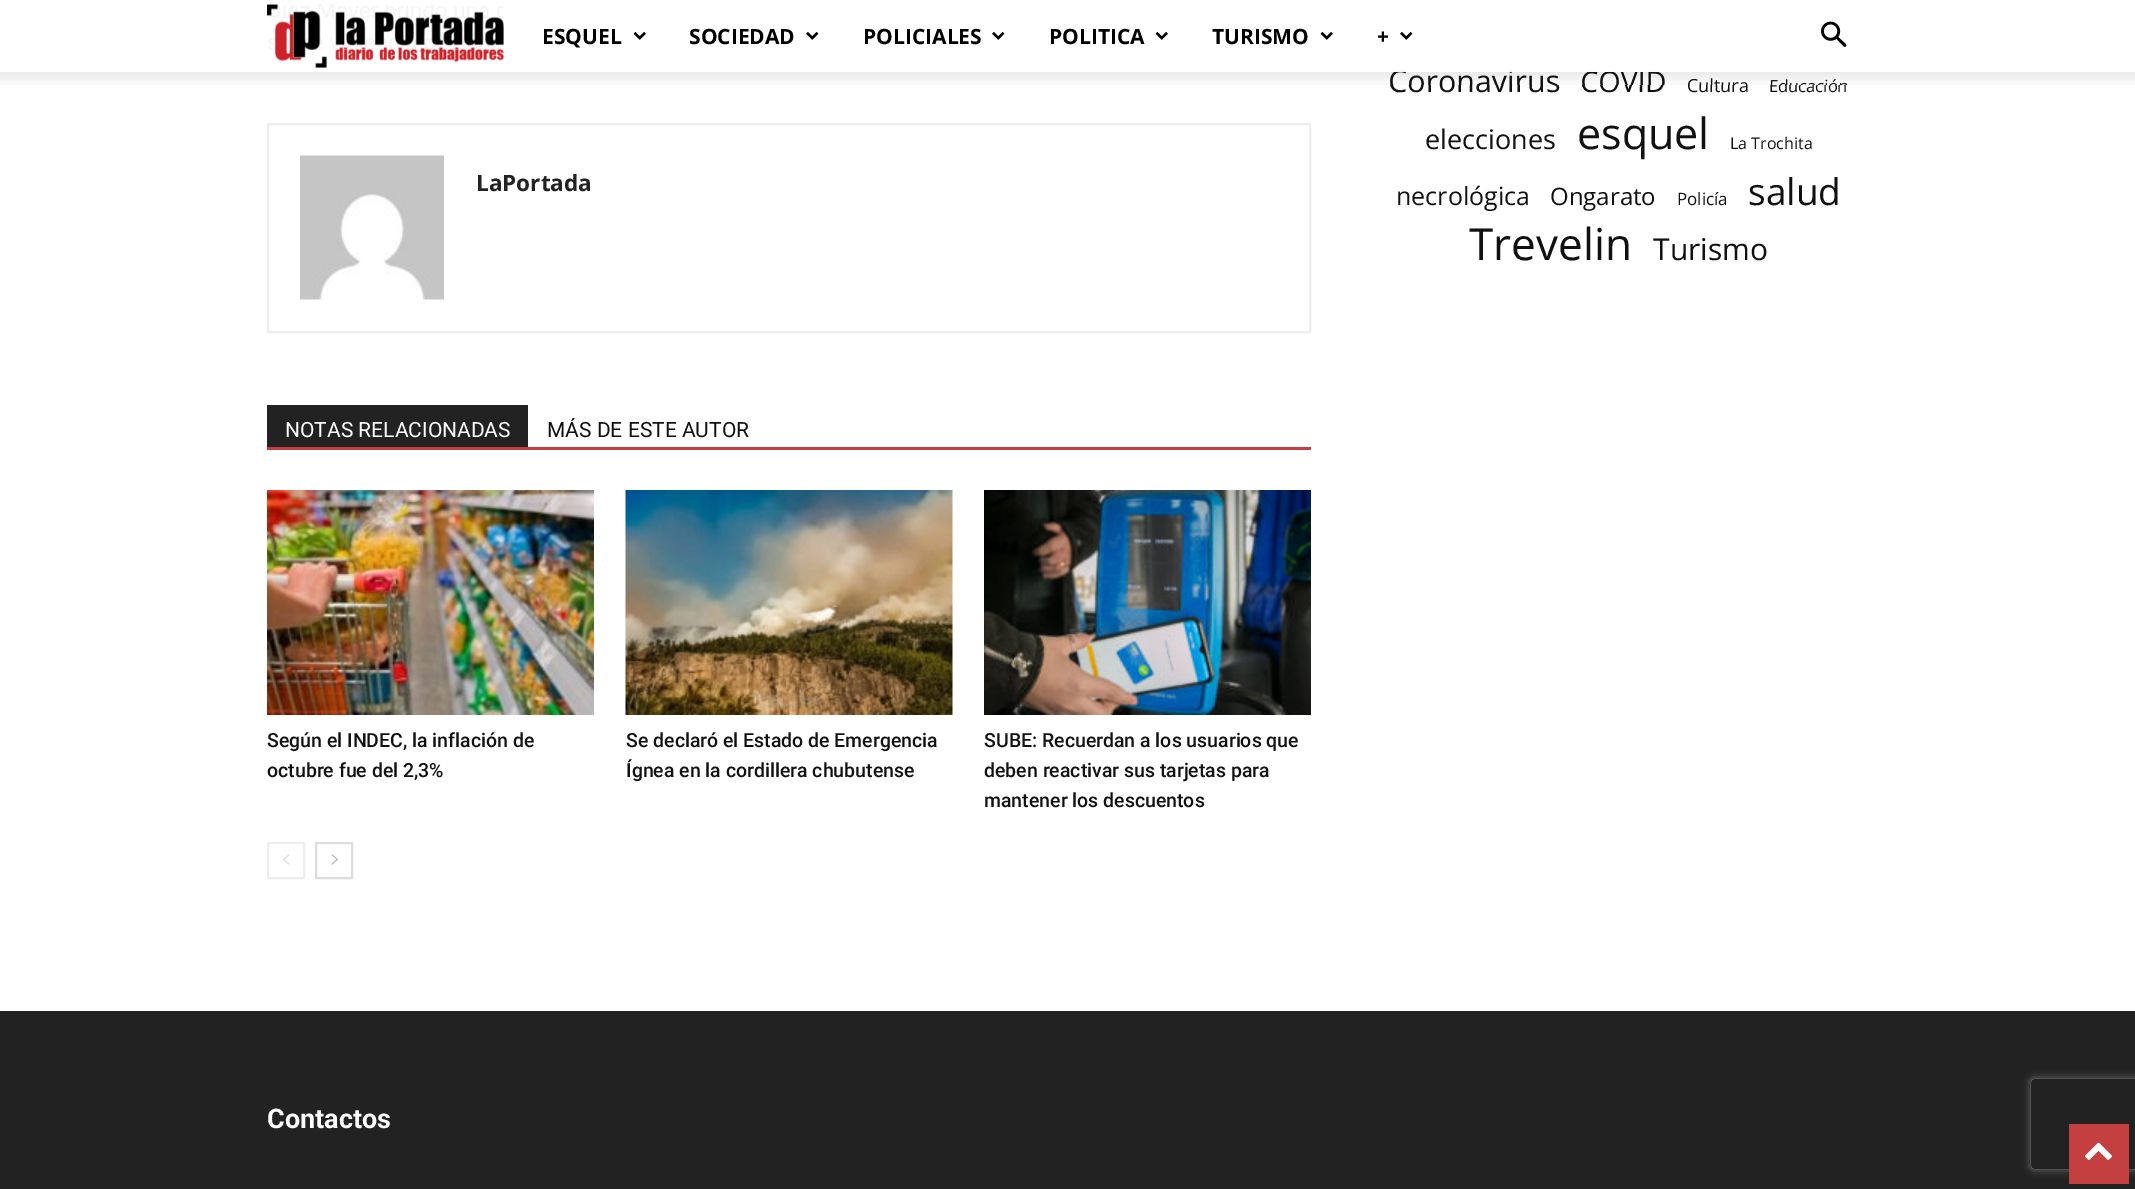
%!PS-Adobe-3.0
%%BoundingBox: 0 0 2135 1189
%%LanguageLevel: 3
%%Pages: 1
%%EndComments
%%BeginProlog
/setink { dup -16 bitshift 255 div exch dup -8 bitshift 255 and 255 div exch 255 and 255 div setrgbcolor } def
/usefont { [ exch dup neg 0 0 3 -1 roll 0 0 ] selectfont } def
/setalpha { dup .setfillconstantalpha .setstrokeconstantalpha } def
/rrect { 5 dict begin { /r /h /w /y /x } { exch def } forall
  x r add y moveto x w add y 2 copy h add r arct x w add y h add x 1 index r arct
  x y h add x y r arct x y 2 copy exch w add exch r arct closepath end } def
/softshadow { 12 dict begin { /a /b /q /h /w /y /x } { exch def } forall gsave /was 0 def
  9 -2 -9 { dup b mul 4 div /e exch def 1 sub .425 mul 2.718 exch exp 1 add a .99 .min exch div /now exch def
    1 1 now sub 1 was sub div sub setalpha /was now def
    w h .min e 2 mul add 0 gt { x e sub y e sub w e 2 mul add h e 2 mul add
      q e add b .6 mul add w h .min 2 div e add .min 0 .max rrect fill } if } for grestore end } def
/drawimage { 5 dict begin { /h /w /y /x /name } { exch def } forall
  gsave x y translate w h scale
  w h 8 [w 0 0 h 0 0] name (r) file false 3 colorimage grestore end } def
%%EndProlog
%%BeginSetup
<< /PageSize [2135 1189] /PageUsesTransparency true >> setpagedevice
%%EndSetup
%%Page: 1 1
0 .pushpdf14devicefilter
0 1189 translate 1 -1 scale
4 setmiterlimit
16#FFFFFF setink
0 0 2135 1189 rectfill
/OpenSans-Regular 30.5 usefont
16#111111 setink
1388 92 moveto (Coronavirus) show
/OpenSans-Regular 28.5 usefont
1580 92 moveto (COVID) show
0.95 setalpha
16#FFFFFF setink
1394 69 264 3 rectfill
1 setalpha
(img1.raw) 267 4 237 64 drawimage
/OpenSans-Bold 21 usefont
16#000000 setink
542 44 moveto (ESQUEL) show
(img2.raw) 633 32 13 8 drawimage
689 44 moveto (SOCIEDAD) show
(img3.raw) 806 32 13 8 drawimage
863 44 moveto (POLICIALES) show
(img3.raw) 992 32 13 8 drawimage
1049 44 moveto (POLITICA) show
(img4.raw) 1155 32 13 8 drawimage
1212 44 moveto (TURISMO) show
(img2.raw) 1320 32 13 8 drawimage
1377 44 moveto (+) show
(img3.raw) 1400 32 13 8 drawimage
(img5.raw) 1821 21 26 26 drawimage
/OpenSans-Regular 18 usefont
16#111111 setink
1687 92 moveto (Cultura) show
/OpenSans-Regular 16.5 usefont
1769 92 moveto (Educación) show
(img6.raw) 0 72 2135 13 drawimage
16#EDEDED setink
2 setlinewidth
268 124 1042 208 rectstroke
(img7.raw) 300 155 144 145 drawimage
/OpenSans-Bold 22.5 usefont
16#222222 setink
476 191 moveto (LaPortada) show
16#C44040 setink
267 447 1044 3 rectfill
16#222222 setink
267 405 261 42 rectfill
/Roboto-Regular 21 usefont
16#FFFFFF setink
285 437 moveto (NOTAS RELACIONADAS) show
16#111111 setink
547 437 moveto (MÁS DE ESTE AUTOR) show
(img8.raw) 267 490 327 225 drawimage
/Roboto-Medium 19.5 usefont
267 747 moveto (Según el INDEC, la inflación de) show
267 777 moveto (octubre fue del 2,3%) show
(img9.raw) 625 490 328 225 drawimage
626 747 moveto (Se declaró el Estado de Emergencia) show
626 777 moveto (Ígnea en la cordillera chubutense) show
(img10.raw) 984 490 327 225 drawimage
[
    [(SUBE: Recuerdan a los usuarios que) 984 747]
    [(deben reactivar sus tarjetas para) 984 777]
    [(mantener los descuentos) 984 807]
] { aload pop moveto show } forall
16#EEEEEE setink
268 843 36 35 rectstroke
(img11.raw) 283 854 7 11 drawimage
16#DCDCDC setink
316 843 36 35 rectstroke
(img12.raw) 331 854 7 11 drawimage
/OpenSans-Regular 27 usefont
16#111111 setink
1425 149 moveto (elecciones) show
/OpenSans-Regular 43 usefont
1577 149 moveto (esquel) show
/OpenSans-Regular 16 usefont
1730 149 moveto (La Trochita) show
/OpenSans-Regular 25 usefont
1396 205 moveto (necrológica) show
/OpenSans-Regular 24 usefont
1550 205 moveto (Ongarato) show
/OpenSans-Regular 17 usefont
1677 205 moveto (Policía) show
/OpenSans-Regular 37 usefont
1748 205 moveto (salud) show
/OpenSans-Regular 44 usefont
1469 260 moveto (Trevelin) show
/OpenSans-Regular 30 usefont
1653 260 moveto (Turismo) show
16#222222 setink
0 1011 2135 178 rectfill
/Roboto-Bold 27 usefont
16#FFFFFF setink
267 1128 moveto (Contactos) show
gsave
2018 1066 moveto 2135 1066 lineto 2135 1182 lineto 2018 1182 lineto closepath 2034 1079 moveto 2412 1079 lineto 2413.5 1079 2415 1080.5 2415 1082 curveto 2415 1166 lineto 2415 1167.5 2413.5 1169 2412 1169 curveto 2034 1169 lineto 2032.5 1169 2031 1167.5 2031 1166 curveto 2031 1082 lineto 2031 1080.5 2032.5 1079 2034 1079 curveto closepath eoclip newpath
16#808080 setink
2031 1079 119 90 3 4 1 softshadow
grestore
16#C44040 setink
2069 1124 60 60 rectfill
(img13.raw) 2085 1142 27 18 drawimage
.poppdf14devicefilter showpage
%%EOF
